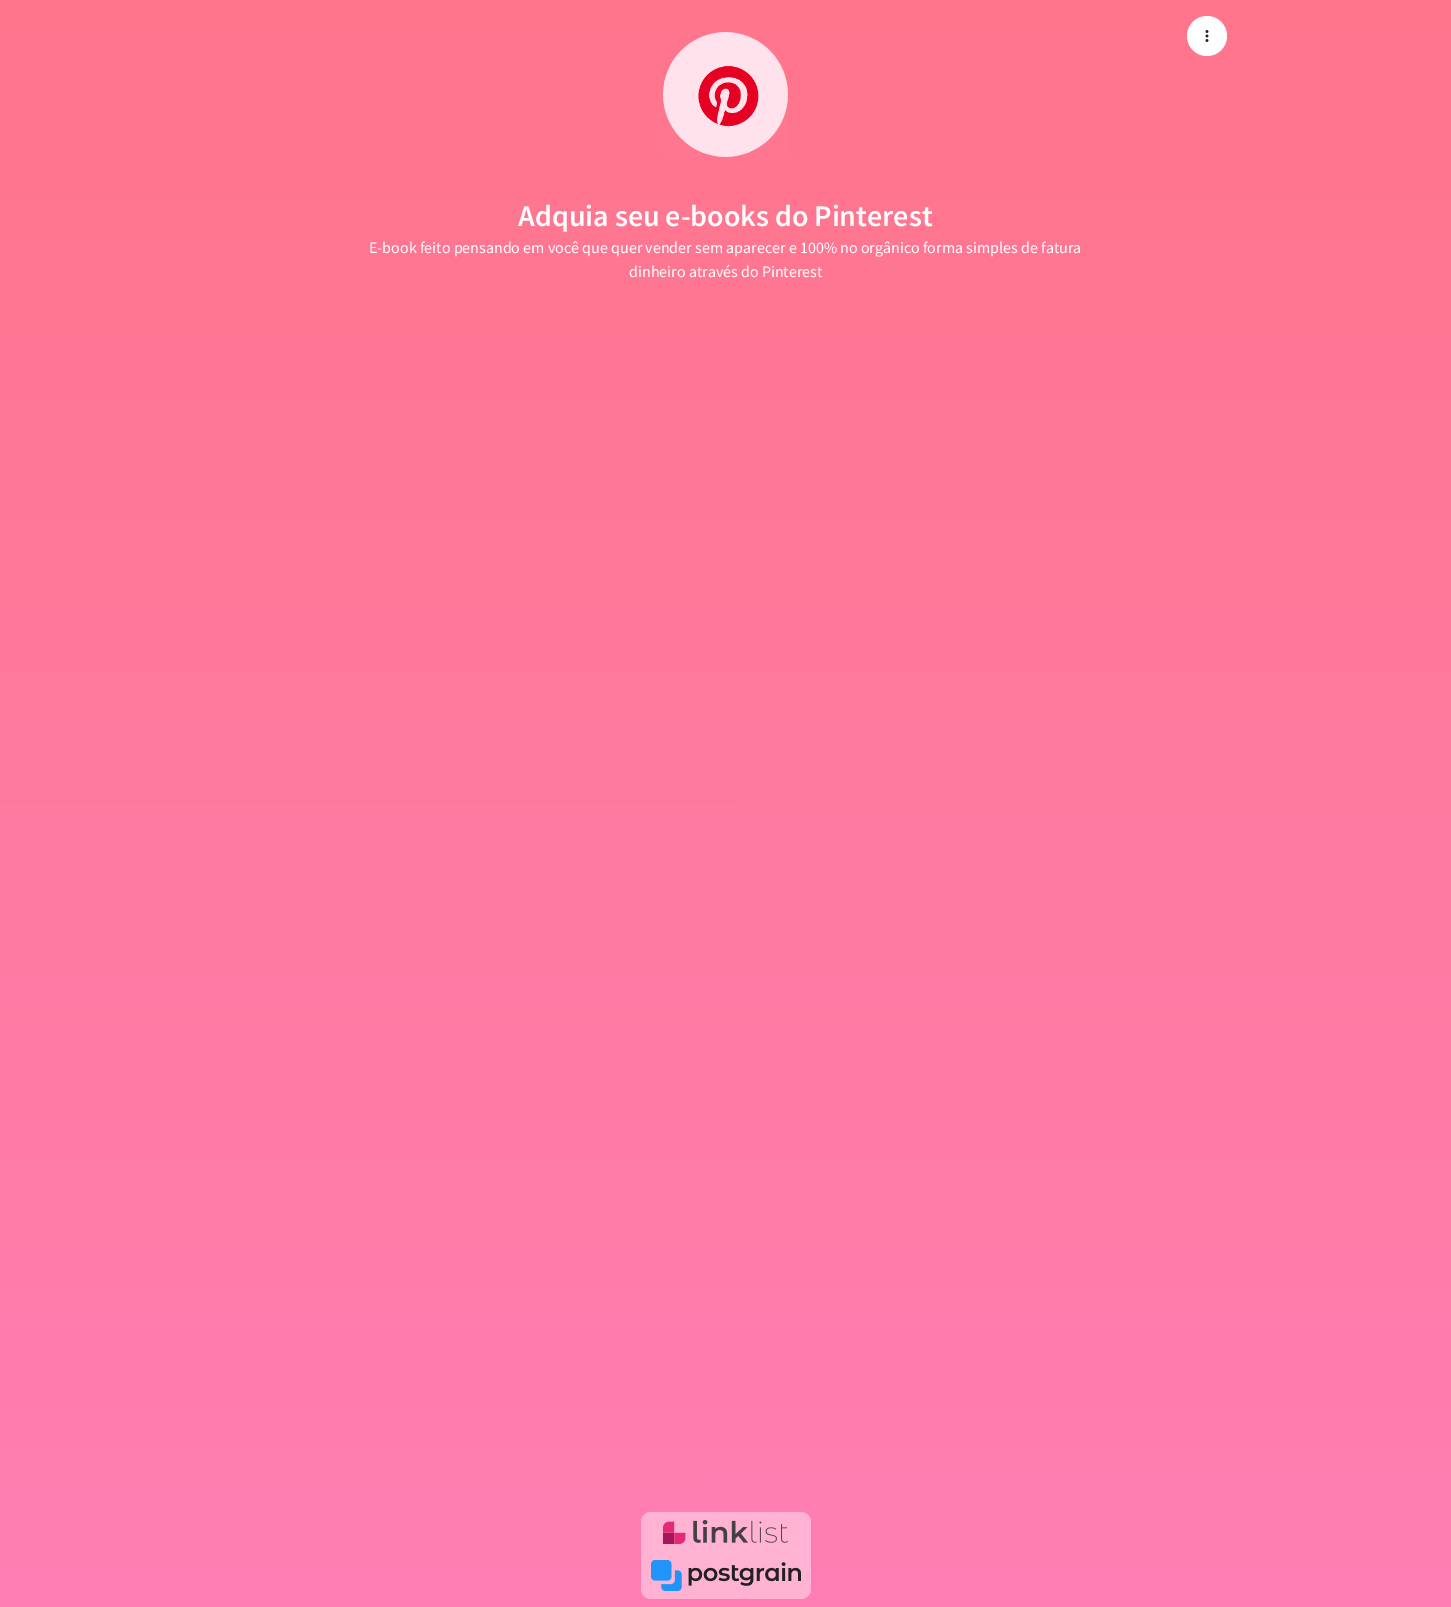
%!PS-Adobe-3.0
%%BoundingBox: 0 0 1451 1607
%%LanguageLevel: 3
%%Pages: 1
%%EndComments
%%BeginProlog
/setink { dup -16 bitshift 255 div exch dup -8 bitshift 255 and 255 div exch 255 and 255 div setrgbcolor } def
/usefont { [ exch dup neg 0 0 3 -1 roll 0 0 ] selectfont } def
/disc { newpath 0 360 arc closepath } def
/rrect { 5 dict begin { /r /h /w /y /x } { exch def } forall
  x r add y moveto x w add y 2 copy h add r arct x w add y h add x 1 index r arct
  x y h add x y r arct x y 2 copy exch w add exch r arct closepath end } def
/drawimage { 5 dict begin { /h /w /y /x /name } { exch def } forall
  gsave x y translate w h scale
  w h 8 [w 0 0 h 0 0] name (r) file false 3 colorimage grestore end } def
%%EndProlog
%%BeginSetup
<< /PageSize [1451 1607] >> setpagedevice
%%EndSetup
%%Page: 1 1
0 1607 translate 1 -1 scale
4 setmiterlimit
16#FFFFFF setink
0 0 1451 1607 rectfill
gsave 0 0 moveto 1451 0 lineto 1451 1607 lineto 0 1607 lineto closepath clip newpath
<< /ShadingType 2 /ColorSpace /DeviceRGB /Coords [725 0 726 1607] /Extend [true true] /Function << /FunctionType 2 /Domain [0 1] /C0 [1 0.459 0.549] /C1 [1 0.494 0.702] /N 1 >> >> shfill grestore
1207 36 20 disc fill
(img1.raw) 1205 30 4 12 drawimage
(img2.raw) 663 32 125 125 drawimage
/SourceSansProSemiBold-SemiBold 30 usefont
518 226 moveto (Adquia seu e-books do Pinterest) show
/SourceSansPro-Regular 16 usefont
369 253 moveto (E-book feito pensando em você que quer vender sem aparecer e 100% no orgânico forma simples de fatura) show
629 277 moveto (dinheiro através do Pinterest) show
16#FFB2D1 setink
641 1512 170 87 10 rrect fill
(img3.raw) 663 1520 125 24 drawimage
(img4.raw) 651 1560 150 31 drawimage
showpage
%%EOF
